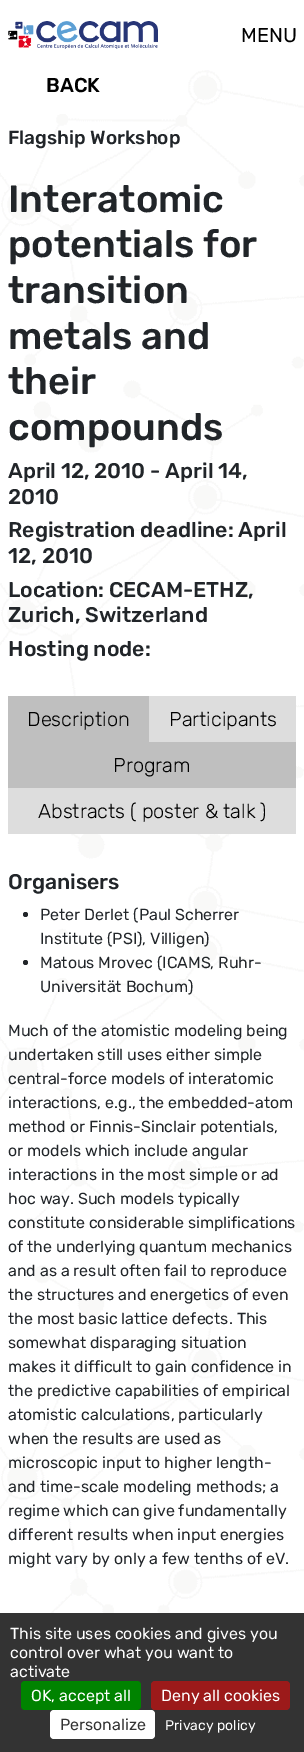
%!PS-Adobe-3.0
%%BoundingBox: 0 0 304 1752
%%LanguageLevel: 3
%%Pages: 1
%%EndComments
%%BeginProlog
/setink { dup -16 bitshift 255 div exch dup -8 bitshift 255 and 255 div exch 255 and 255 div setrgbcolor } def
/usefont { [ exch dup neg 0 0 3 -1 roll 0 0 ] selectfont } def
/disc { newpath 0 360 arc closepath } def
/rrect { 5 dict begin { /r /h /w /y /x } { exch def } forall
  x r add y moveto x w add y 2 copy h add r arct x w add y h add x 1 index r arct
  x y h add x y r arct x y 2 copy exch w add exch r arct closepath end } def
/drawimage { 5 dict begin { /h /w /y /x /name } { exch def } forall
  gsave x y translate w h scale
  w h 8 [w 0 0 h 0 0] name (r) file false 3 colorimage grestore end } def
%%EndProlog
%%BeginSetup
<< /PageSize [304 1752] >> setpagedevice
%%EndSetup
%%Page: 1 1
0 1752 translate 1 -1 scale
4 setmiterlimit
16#FFFFFF setink
0 0 304 1752 rectfill
(img1.raw) 8 21 150 28 drawimage
/Rubik-Regular 20 usefont
16#000000 setink
241 42 moveto (MENU) show
(img2.raw) 0 70 304 1543 drawimage
/Rubik-Medium 20 usefont
46 92 moveto (BACK) show
/Rubik-Medium 19 usefont
16#212529 setink
8 144 moveto (Flagship Workshop) show
/Rubik-Medium 38 usefont
[
    [(Interatomic) 8 212]
    [(potentials for) 8 257]
    [(transition) 8 303]
    [(metals and) 8 349]
    [(their) 8 394]
    [(compounds) 8 440]
] { aload pop moveto show } forall
/Rubik-Medium 21.25 usefont
[
    [(April 12, 2010 - April 14,) 8 478]
    [(2010) 8 504]
    [(Registration deadline: April) 8 537]
    [(12, 2010) 8 563]
    [(Location: CECAM-ETHZ,) 8 597]
    [(Zurich, Switzerland) 8 622]
    [(Hosting node:) 8 656]
] { aload pop moveto show } forall
16#BFBFBF setink
8 696 141 46 rectfill
/Rubik-Light 20 usefont
16#000000 setink
27 726 moveto (Description) show
16#DDDDDD setink
149 696 147 46 rectfill
16#000000 setink
169 726 moveto (Participants) show
16#BFBFBF setink
8 742 288 46 rectfill
16#000000 setink
113 772 moveto (Program) show
16#DDDDDD setink
8 788 288 46 rectfill
16#000000 setink
38 818 moveto (Abstracts \( poster & talk \)) show
/Rubik-Medium 21.25 usefont
16#212529 setink
8 889 moveto (Organisers) show
25.5 914.5 2.5 disc fill
/Rubik-Regular 16 usefont
40 920 moveto (Peter Derlet \(Paul Scherrer) show
40 944 moveto (Institute \(PSI\), Villigen\)) show
25.5 962.5 2.5 disc fill
[
    [(Matous Mrovec \(ICAMS, Ruhr-) 40 968]
    [(Universität Bochum\)) 40 992]
    [(Much of the atomistic modeling being) 8 1036]
    [(undertaken still uses either simple) 8 1060]
    [(central-force models of interatomic) 8 1084]
    [(interactions, e.g., the embedded-atom) 8 1108]
    [(method or Finnis-Sinclair potentials,) 8 1132]
    [(or models which include angular) 8 1156]
    [(interactions in the most simple or ad) 8 1180]
    [(hoc way. Such models typically) 8 1204]
    [(constitute considerable simplifications) 8 1228]
    [(of the underlying quantum mechanics) 8 1252]
    [(and as a result often fail to reproduce) 8 1276]
    [(the structures and energetics of even) 8 1300]
    [(the most basic lattice defects. This) 8 1324]
    [(somewhat disparaging situation) 8 1348]
    [(makes it difficult to gain confidence in) 8 1372]
    [(the predictive capabilities of empirical) 8 1396]
    [(atomistic calculations, particularly) 8 1420]
    [(when the results are used as) 8 1444]
    [(microscopic input to higher length-) 8 1468]
    [(and time-scale modeling methods; a) 8 1492]
    [(regime which can give fundamentally) 8 1516]
    [(different results when input energies) 8 1540]
    [(might vary by only a few tenths of eV.) 8 1564]
] { aload pop moveto show } forall
16#333333 setink
0 1613 304 139 rectfill
16#FFFFFF setink
[
    [(This site uses cookies and gives you) 10 1639]
    [(control over what you want to) 10 1658]
    [(activate) 10 1677]
] { aload pop moveto show } forall
16#008300 setink
21 1681 120 29 4 rrect fill
16#FFFFFF setink
31 1701 moveto (OK, accept all) show
16#9C1A1A setink
151 1681 139 29 4 rrect fill
16#FFFFFF setink
161 1701 moveto (Deny all cookies) show
50 1710 105 29 4 rrect fill
16#333333 setink
60 1730 moveto (Personalize) show
/Rubik-Regular 14 usefont
16#FFFFFF setink
165 1730 moveto (Privacy policy) show
showpage
%%EOF
